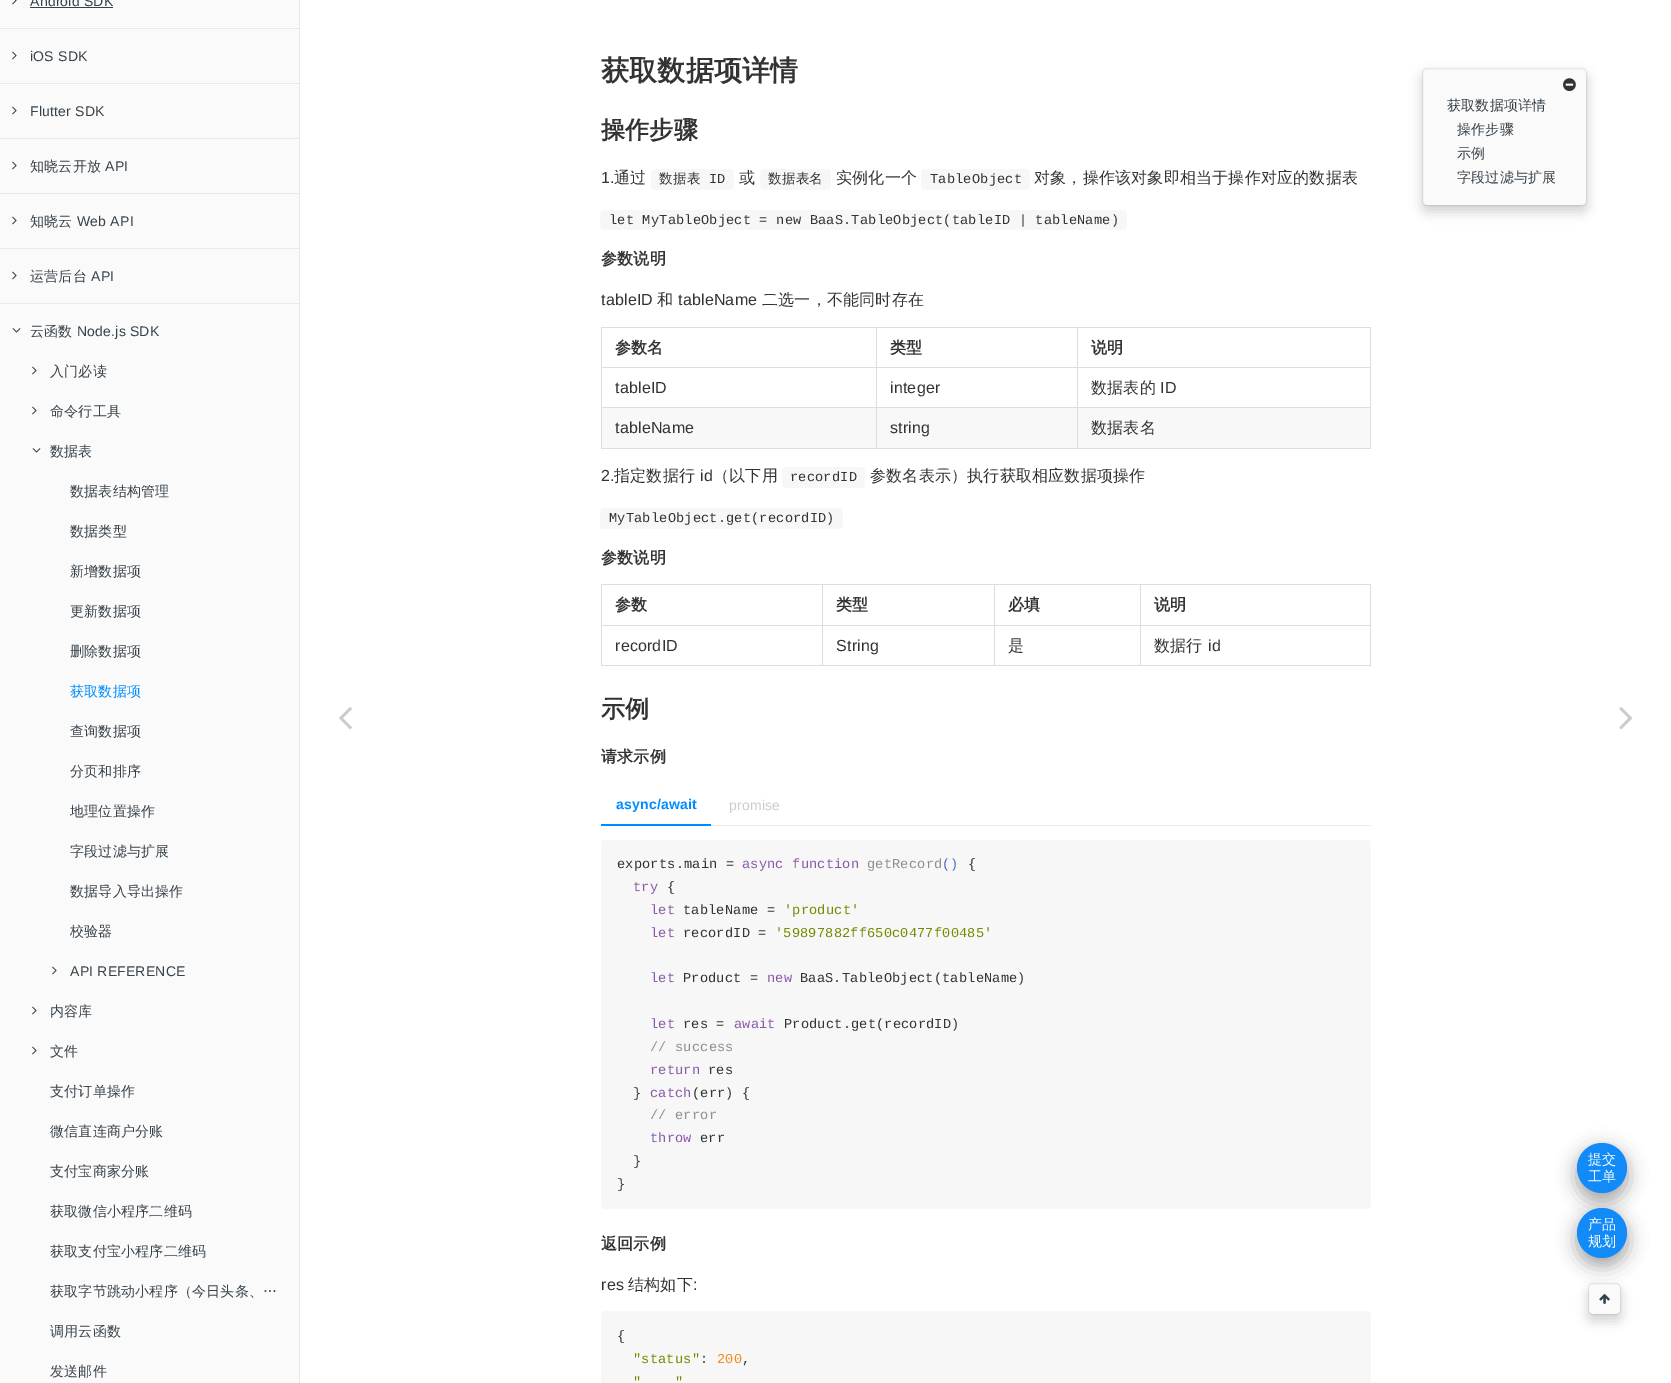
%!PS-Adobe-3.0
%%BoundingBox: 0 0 1671 1383
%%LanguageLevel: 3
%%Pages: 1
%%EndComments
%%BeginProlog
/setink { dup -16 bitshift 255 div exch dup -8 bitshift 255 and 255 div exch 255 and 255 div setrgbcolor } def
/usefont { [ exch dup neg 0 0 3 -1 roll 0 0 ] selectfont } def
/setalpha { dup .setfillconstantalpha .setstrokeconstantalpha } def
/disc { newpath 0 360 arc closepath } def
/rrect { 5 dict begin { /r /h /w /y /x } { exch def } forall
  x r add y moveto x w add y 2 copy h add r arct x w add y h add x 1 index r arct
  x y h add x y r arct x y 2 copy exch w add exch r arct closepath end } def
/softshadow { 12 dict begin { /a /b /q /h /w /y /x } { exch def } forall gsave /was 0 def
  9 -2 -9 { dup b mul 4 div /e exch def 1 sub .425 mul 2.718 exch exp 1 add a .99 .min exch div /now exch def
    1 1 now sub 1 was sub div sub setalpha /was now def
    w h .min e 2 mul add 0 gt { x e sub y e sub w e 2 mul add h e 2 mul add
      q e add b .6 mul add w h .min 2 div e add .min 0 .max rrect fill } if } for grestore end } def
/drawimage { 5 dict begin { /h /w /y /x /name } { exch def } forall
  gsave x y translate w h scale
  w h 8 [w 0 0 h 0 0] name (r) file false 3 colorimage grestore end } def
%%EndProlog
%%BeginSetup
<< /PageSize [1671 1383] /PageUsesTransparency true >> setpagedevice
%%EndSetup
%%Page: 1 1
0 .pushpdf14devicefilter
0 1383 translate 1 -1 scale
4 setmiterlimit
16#FFFFFF setink
0 0 1671 1383 rectfill
16#FAFAFA setink
0 0 299 1383 rectfill
16#E9E9E9 setink
299 0 1 1383 rectfill
(img1.raw) 12 0 5 5 drawimage
/LiberationSans-Regular 14 usefont
16#364149 setink
30 6 moveto 0.2 0 (Android SDK) ashow
30 7 83 1 rectfill
16#E9E9E9 setink
0 28 299 1 rectfill
(img2.raw) 12 51 5 9 drawimage
16#364149 setink
30 61 moveto 0.2 0 (iOS SDK) ashow
16#E9E9E9 setink
0 83 299 1 rectfill
(img2.raw) 12 106 5 9 drawimage
16#364149 setink
30 116 moveto 0.2 0 (Flutter SDK) ashow
16#E9E9E9 setink
0 138 299 1 rectfill
(img2.raw) 12 161 5 9 drawimage
/WenQuanYiZenHei-Medium 14 usefont
16#364149 setink
30 171 moveto 0.2 0 (知晓云开放) ashow
/LiberationSans-Regular 14 usefont
105 171 moveto 0.2 0 (API) ashow
16#E9E9E9 setink
0 193 299 1 rectfill
(img2.raw) 12 216 5 9 drawimage
/WenQuanYiZenHei-Medium 14 usefont
16#364149 setink
30 226 moveto 0.2 0 (知晓云) ashow
/LiberationSans-Regular 14 usefont
77 226 moveto 0.2 0 (Web API) ashow
16#E9E9E9 setink
0 248 299 1 rectfill
(img2.raw) 12 271 5 9 drawimage
/WenQuanYiZenHei-Medium 14 usefont
16#364149 setink
30 281 moveto 0.2 0 (运营后台) ashow
/LiberationSans-Regular 14 usefont
91 281 moveto 0.2 0 (API) ashow
16#E9E9E9 setink
0 303 299 1 rectfill
(img3.raw) 12 328 9 5 drawimage
/WenQuanYiZenHei-Medium 14 usefont
16#364149 setink
30 336 moveto 0.2 0 (云函数) ashow
/LiberationSans-Regular 14 usefont
77 336 moveto 0.2 0 (Node.js SDK) ashow
(img2.raw) 32 366 5 9 drawimage
/WenQuanYiZenHei-Medium 14 usefont
50 376 moveto 0.2 0 (入门必读) ashow
(img2.raw) 32 406 5 9 drawimage
50 416 moveto 0.2 0 (命令行工具) ashow
(img3.raw) 32 448 9 5 drawimage
50 456 moveto 0.2 0 (数据表) ashow
70 496 moveto 0.2 0 (数据表结构管理) ashow
70 536 moveto 0.2 0 (数据类型) ashow
70 576 moveto 0.2 0 (新增数据项) ashow
70 616 moveto 0.2 0 (更新数据项) ashow
70 656 moveto 0.2 0 (删除数据项) ashow
16#008CFF setink
70 696 moveto 0.2 0 (获取数据项) ashow
16#364149 setink
70 736 moveto 0.2 0 (查询数据项) ashow
70 776 moveto 0.2 0 (分页和排序) ashow
70 816 moveto 0.2 0 (地理位置操作) ashow
70 856 moveto 0.2 0 (字段过滤与扩展) ashow
70 896 moveto 0.2 0 (数据导入导出操作) ashow
70 936 moveto 0.2 0 (校验器) ashow
(img2.raw) 52 966 5 9 drawimage
/LiberationSans-Regular 14 usefont
70 976 moveto 0.2 0 (API REFERENCE) ashow
(img2.raw) 32 1006 5 9 drawimage
/WenQuanYiZenHei-Medium 14 usefont
50 1016 moveto 0.2 0 (内容库) ashow
(img2.raw) 32 1046 5 9 drawimage
50 1056 moveto 0.2 0 (文件) ashow
50 1096 moveto 0.2 0 (支付订单操作) ashow
50 1136 moveto 0.2 0 (微信直连商户分账) ashow
50 1176 moveto 0.2 0 (支付宝商家分账) ashow
50 1216 moveto 0.2 0 (获取微信小程序二维码) ashow
50 1256 moveto 0.2 0 (获取支付宝小程序二维码) ashow
50 1296 moveto 0.2 0 (获取字节跳动小程序（今日头条、…) ashow
50 1336 moveto 0.2 0 (调用云函数) ashow
50 1376 moveto 0.2 0 (发送邮件) ashow
(img4.raw) 339 707 13 23 drawimage
/WenQuanYiZenHei-Bold 28 usefont
16#333333 setink
601 80 moveto 0.2 0 (获取数据项详情) ashow
/WenQuanYiZenHei-Bold 24 usefont
601 138 moveto 0.2 0 (操作步骤) ashow
16#000000 setink
1422 74 165 138 5 6 0.18 softshadow
16#FAFAFA setink
1423 69 163 136 4 rrect fill
0.07 setalpha
16#000000 setink
1422.5 68.5 164 137 4.5 rrect stroke
1 setalpha
(img5.raw) 1563 78 13 14 drawimage
/WenQuanYiZenHei-Medium 14 usefont
16#364149 setink
1447 110 moveto 0.2 0 (获取数据项详情) ashow
1457 134 moveto 0.2 0 (操作步骤) ashow
1457 158 moveto 0.2 0 (示例) ashow
1457 182 moveto 0.2 0 (字段过滤与扩展) ashow
/LiberationSans-Regular 16 usefont
16#333333 setink
601 183 moveto 0.2 0 (1.) ashow
/WenQuanYiZenHei-Medium 16 usefont
614 183 moveto 0.2 0 (通过) ashow
16#F7F7F7 setink
659 169 67 21 rectfill
/WenQuanYiZenHei-Medium 13.6 usefont
16#333333 setink
659 183 moveto 0.2 0 (数据表) ashow
16#F7F7F7 setink
655 169 moveto 659 169 lineto 659 190 lineto 655 190 lineto 653 190 651 188 651 186 curveto 651 173 lineto 651 171 653 169 655 169 curveto closepath fill
/LiberationMono-Regular 13.6 usefont
16#333333 setink
709 183 moveto 0.2 0 (ID) ashow
16#F7F7F7 setink
726 169 moveto 730 169 lineto 732 169 734 171 734 173 curveto 734 186 lineto 734 188 732 190 730 190 curveto 726 190 lineto closepath fill
/WenQuanYiZenHei-Medium 16 usefont
16#333333 setink
739 183 moveto 0.2 0 (或) ashow
16#F7F7F7 setink
764 169 moveto 768 169 lineto 768 190 lineto 764 190 lineto 762 190 760 188 760 186 curveto 760 173 lineto 760 171 762 169 764 169 curveto closepath fill
768 169 55 21 rectfill
/WenQuanYiZenHei-Medium 13.6 usefont
16#333333 setink
768 183 moveto 0.2 0 (数据表名) ashow
16#F7F7F7 setink
823 169 moveto 827 169 lineto 829 169 831 171 831 173 curveto 831 186 lineto 831 188 829 190 827 190 curveto 823 190 lineto closepath fill
/WenQuanYiZenHei-Medium 16 usefont
16#333333 setink
836 183 moveto 0.2 0 (实例化一个) ashow
16#F7F7F7 setink
930 169 92 21 rectfill
/LiberationMono-Regular 13.6 usefont
16#333333 setink
930 183 moveto 0.2 0 (TableObject) ashow
16#F7F7F7 setink
925 169 moveto 930 169 lineto 930 190 lineto 925 190 lineto 923 190 921 188 921 186 curveto 921 173 lineto 921 171 923 169 925 169 curveto closepath fill
1022 169 moveto 1026 169 lineto 1028 169 1030 171 1030 173 curveto 1030 186 lineto 1030 188 1028 190 1026 190 curveto 1022 190 lineto closepath fill
/WenQuanYiZenHei-Medium 16 usefont
16#333333 setink
1034 183 moveto 0.2 0 (对象，操作该对象即相当于操作对应的数据表) ashow
16#F7F7F7 setink
609 210 509 20 rectfill
/LiberationMono-Regular 13.6 usefont
16#333333 setink
609 224 moveto 0.2 0 (let MyTableObject = new BaaS.TableObject\(tableID | tableName\)) ashow
16#F7F7F7 setink
604 210 moveto 609 210 lineto 609 230 lineto 604 230 lineto 602 230 600 228 600 226 curveto 600 214 lineto 600 212 602 210 604 210 curveto closepath fill
1118 210 moveto 1123 210 lineto 1125 210 1127 212 1127 214 curveto 1127 226 lineto 1127 228 1125 230 1123 230 curveto 1118 230 lineto closepath fill
/WenQuanYiZenHei-Bold 16 usefont
16#333333 setink
601 264 moveto 0.2 0 (参数说明) ashow
/LiberationSans-Regular 16 usefont
601 305 moveto 0.2 0 (tableID) ashow
/WenQuanYiZenHei-Medium 16 usefont
657 305 moveto 0.2 0 (和) ashow
/LiberationSans-Regular 16 usefont
678 305 moveto 0.2 0 (tableName) ashow
/WenQuanYiZenHei-Medium 16 usefont
762 305 moveto 0.2 0 (二选一，不能同时存在) ashow
[
    [1077 327 294 1 16#DDDDDD]
    [1077 367 294 1 16#DDDDDD]
    [1077 407 294 1 16#DDDDDD]
    [602 408 768 40 16#F8F8F8]
    [1370 407 1 42 16#DDDDDD]
    [1077 448 294 1 16#DDDDDD]
    [1077 407 1 42 16#DDDDDD]
    [876 407 202 1 16#DDDDDD]
    [1077 367 1 41 16#DDDDDD]
    [876 367 202 1 16#DDDDDD]
    [1077 327 1 41 16#DDDDDD]
    [876 327 202 1 16#DDDDDD]
    [876 448 202 1 16#DDDDDD]
    [876 407 1 42 16#DDDDDD]
    [601 407 276 1 16#DDDDDD]
    [876 367 1 41 16#DDDDDD]
    [601 367 276 1 16#DDDDDD]
    [876 327 1 41 16#DDDDDD]
    [601 327 276 1 16#DDDDDD]
    [601 448 276 1 16#DDDDDD]
    [601 407 1 42 16#DDDDDD]
    [601 367 1 41 16#DDDDDD]
    [601 327 1 41 16#DDDDDD]
] { aload pop setink rectfill } forall
/WenQuanYiZenHei-Bold 16 usefont
16#333333 setink
615 353 moveto 0.2 0 (参数名) ashow
890 353 moveto 0.2 0 (类型) ashow
16#DDDDDD setink
1370 367 1 41 rectfill
1370 327 1 41 rectfill
16#333333 setink
1091 353 moveto 0.2 0 (说明) ashow
/LiberationSans-Regular 16 usefont
615 393 moveto 0.2 0 (tableID) ashow
890 393 moveto 0.2 0 (integer) ashow
/WenQuanYiZenHei-Medium 16 usefont
1091 393 moveto 0.2 0 (数据表的) ashow
/LiberationSans-Regular 16 usefont
1160 393 moveto 0.2 0 (ID) ashow
615 433 moveto 0.2 0 (tableName) ashow
890 433 moveto 0.2 0 (string) ashow
/WenQuanYiZenHei-Medium 16 usefont
1091 433 moveto 0.2 0 (数据表名) ashow
/LiberationSans-Regular 16 usefont
601 481 moveto 0.2 0 (2.) ashow
/WenQuanYiZenHei-Medium 16 usefont
614 481 moveto 0.2 0 (指定数据行) ashow
/LiberationSans-Regular 16 usefont
700 481 moveto 0.2 0 (id) ashow
/WenQuanYiZenHei-Medium 16 usefont
713 481 moveto 0.2 0 (（以下用) ashow
16#F7F7F7 setink
790 467 67 21 rectfill
/LiberationMono-Regular 13.6 usefont
16#333333 setink
790 481 moveto 0.2 0 (recordID) ashow
16#F7F7F7 setink
786 467 moveto 790 467 lineto 790 488 lineto 786 488 lineto 784 488 782 486 782 484 curveto 782 471 lineto 782 469 784 467 786 467 curveto closepath fill
857 467 moveto 861 467 lineto 863 467 865 469 865 471 curveto 865 484 lineto 865 486 863 488 861 488 curveto 857 488 lineto closepath fill
/WenQuanYiZenHei-Medium 16 usefont
16#333333 setink
870 481 moveto 0.2 0 (参数名表示）执行获取相应数据项操作) ashow
16#F7F7F7 setink
609 508 225 21 rectfill
/LiberationMono-Regular 13.6 usefont
16#333333 setink
609 522 moveto 0.2 0 (MyTableObject.get\(recordID\)) ashow
16#F7F7F7 setink
604 508 moveto 609 508 lineto 609 529 lineto 604 529 lineto 602 529 600 527 600 525 curveto 600 512 lineto 600 510 602 508 604 508 curveto closepath fill
834 508 moveto 839 508 lineto 841 508 843 510 843 512 curveto 843 525 lineto 843 527 841 529 839 529 curveto 834 529 lineto closepath fill
/WenQuanYiZenHei-Bold 16 usefont
16#333333 setink
601 563 moveto 0.2 0 (参数说明) ashow
[
    [1140 584 231 1 16#DDDDDD]
    [1140 625 231 1 16#DDDDDD]
    [1370 625 1 41 16#DDDDDD]
    [1140 665 231 1 16#DDDDDD]
    [1140 625 1 41 16#DDDDDD]
    [994 625 147 1 16#DDDDDD]
    [1140 584 1 42 16#DDDDDD]
    [994 584 147 1 16#DDDDDD]
    [994 665 147 1 16#DDDDDD]
    [994 625 1 41 16#DDDDDD]
    [822 625 173 1 16#DDDDDD]
    [994 584 1 42 16#DDDDDD]
    [822 584 173 1 16#DDDDDD]
    [822 665 173 1 16#DDDDDD]
    [822 625 1 41 16#DDDDDD]
    [601 625 222 1 16#DDDDDD]
    [822 584 1 42 16#DDDDDD]
    [601 584 222 1 16#DDDDDD]
    [601 665 222 1 16#DDDDDD]
    [601 625 1 41 16#DDDDDD]
    [601 584 1 42 16#DDDDDD]
] { aload pop setink rectfill } forall
16#333333 setink
615 610 moveto 0.2 0 (参数) ashow
836 610 moveto 0.2 0 (类型) ashow
1008 610 moveto 0.2 0 (必填) ashow
16#DDDDDD setink
1370 584 1 42 rectfill
16#333333 setink
1154 610 moveto 0.2 0 (说明) ashow
/LiberationSans-Regular 16 usefont
615 651 moveto 0.2 0 (recordID) ashow
836 651 moveto 0.2 0 (String) ashow
/WenQuanYiZenHei-Medium 16 usefont
1008 651 moveto 0.2 0 (是) ashow
1154 651 moveto 0.2 0 (数据行) ashow
/LiberationSans-Regular 16 usefont
1208 651 moveto 0.2 0 (id) ashow
/WenQuanYiZenHei-Bold 24 usefont
601 717 moveto 0.2 0 (示例) ashow
/WenQuanYiZenHei-Bold 16 usefont
601 762 moveto 0.2 0 (请求示例) ashow
16#EBEDF0 setink
711 825 660 1 rectfill
16#008CFF setink
601 824 110 2 rectfill
/LiberationSans-Bold 14 usefont
616 809 moveto 0.2 0 (async/await) ashow
/LiberationSans-Regular 14 usefont
16#CCCCCC setink
729 810 moveto 0.2 0 (promise) ashow
16#F7F7F7 setink
601 840 770 369 4 rrect fill
/LiberationMono-Regular 13.6 usefont
16#333333 setink
617 868 moveto 0.2 0 (exports.main =) ashow
16#8959A8 setink
742 868 moveto 0.2 0 (async function) ashow
16#8E908C setink
867 868 moveto 0.2 0 (getRecord) ashow
16#4271AE setink
942 868 moveto 0.2 0 (\(\)) ashow
16#333333 setink
968 868 moveto 0.2 0 ({) ashow
16#8959A8 setink
633 891 moveto 0.2 0 (try) ashow
16#333333 setink
667 891 moveto 0.2 0 ({) ashow
16#8959A8 setink
650 914 moveto 0.2 0 (let) ashow
16#333333 setink
683 914 moveto 0.2 0 (tableName =) ashow
16#718C00 setink
784 914 moveto 0.2 0 ('product') ashow
16#8959A8 setink
650 937 moveto 0.2 0 (let) ashow
16#333333 setink
683 937 moveto 0.2 0 (recordID =) ashow
16#718C00 setink
775 937 moveto 0.2 0 ('59897882ff650c0477f00485') ashow
16#8959A8 setink
650 982 moveto 0.2 0 (let) ashow
16#333333 setink
683 982 moveto 0.2 0 (Product =) ashow
16#8959A8 setink
767 982 moveto 0.2 0 (new) ashow
16#333333 setink
800 982 moveto 0.2 0 (BaaS.TableObject\(tableName\)) ashow
16#8959A8 setink
650 1028 moveto 0.2 0 (let) ashow
16#333333 setink
683 1028 moveto 0.2 0 (res =) ashow
16#8959A8 setink
734 1028 moveto 0.2 0 (await) ashow
16#333333 setink
784 1028 moveto 0.2 0 (Product.get\(recordID\)) ashow
16#8E908C setink
650 1051 moveto 0.2 0 (// success) ashow
16#8959A8 setink
650 1074 moveto 0.2 0 (return) ashow
16#333333 setink
708 1074 moveto 0.2 0 (res) ashow
633 1097 moveto 0.2 0 (}) ashow
16#8959A8 setink
650 1097 moveto 0.2 0 (catch) ashow
16#333333 setink
692 1097 moveto 0.2 0 (\(err\) {) ashow
16#8E908C setink
650 1119 moveto 0.2 0 (// error) ashow
16#8959A8 setink
650 1142 moveto 0.2 0 (throw) ashow
16#333333 setink
700 1142 moveto 0.2 0 (err) ashow
633 1165 moveto 0.2 0 (}) ashow
617 1188 moveto 0.2 0 (}) ashow
/WenQuanYiZenHei-Bold 16 usefont
601 1249 moveto 0.2 0 (返回示例) ashow
/LiberationSans-Regular 16 usefont
601 1290 moveto 0.2 0 (res) ashow
/WenQuanYiZenHei-Medium 16 usefont
628 1290 moveto 0.2 0 (结构如下) ashow
/LiberationSans-Regular 16 usefont
693 1290 moveto 0.2 0 (:) ashow
16#000000 setink
1588 1289 33 32 5 6 0.18 softshadow
1577 1149 50 50 25 10 0.19 softshadow
1577 1151 50 50 25 8.5 0.2 softshadow
16#128BF8 setink
1602 1168 25 disc fill
16#000000 setink
1577 1214 50 50 25 10 0.19 softshadow
1577 1216 50 50 25 8.5 0.2 softshadow
16#FAFAFA setink
1589 1284 31 30 4 rrect fill
0.07 setalpha
16#000000 setink
1588.5 1283.5 32 31 4.5 rrect stroke
1 setalpha
(img6.raw) 1599 1294 11 10 drawimage
16#F7F7F7 setink
605 1311 moveto 1367 1311 lineto 1369 1311 1371 1313 1371 1315 curveto 1371 1383 lineto 601 1383 lineto 601 1315 lineto 601 1313 603 1311 605 1311 curveto closepath fill
/LiberationMono-Regular 13.6 usefont
16#333333 setink
617 1340 moveto 0.2 0 ({) ashow
16#718C00 setink
633 1363 moveto 0.2 0 ("status") ashow
16#333333 setink
700 1363 moveto 0.2 0 (:) ashow
16#F5871F setink
717 1363 moveto 0.2 0 (200) ashow
16#333333 setink
742 1363 moveto 0.2 0 (,) ashow
16#718C00 setink
633 1386 moveto 0.2 0 (") ashow
675 1386 moveto 0.2 0 (") ashow
(img7.raw) 1619 707 14 23 drawimage
/WenQuanYiZenHei-Medium 14 usefont
16#FFFFFF setink
1588 1164 moveto 0.2 0 (提交) ashow
1588 1181 moveto 0.2 0 (工单) ashow
16#128BF8 setink
1602 1233 25 disc fill
16#FFFFFF setink
1588 1229 moveto 0.2 0 (产品) ashow
1588 1246 moveto 0.2 0 (规划) ashow
.poppdf14devicefilter showpage
%%EOF
